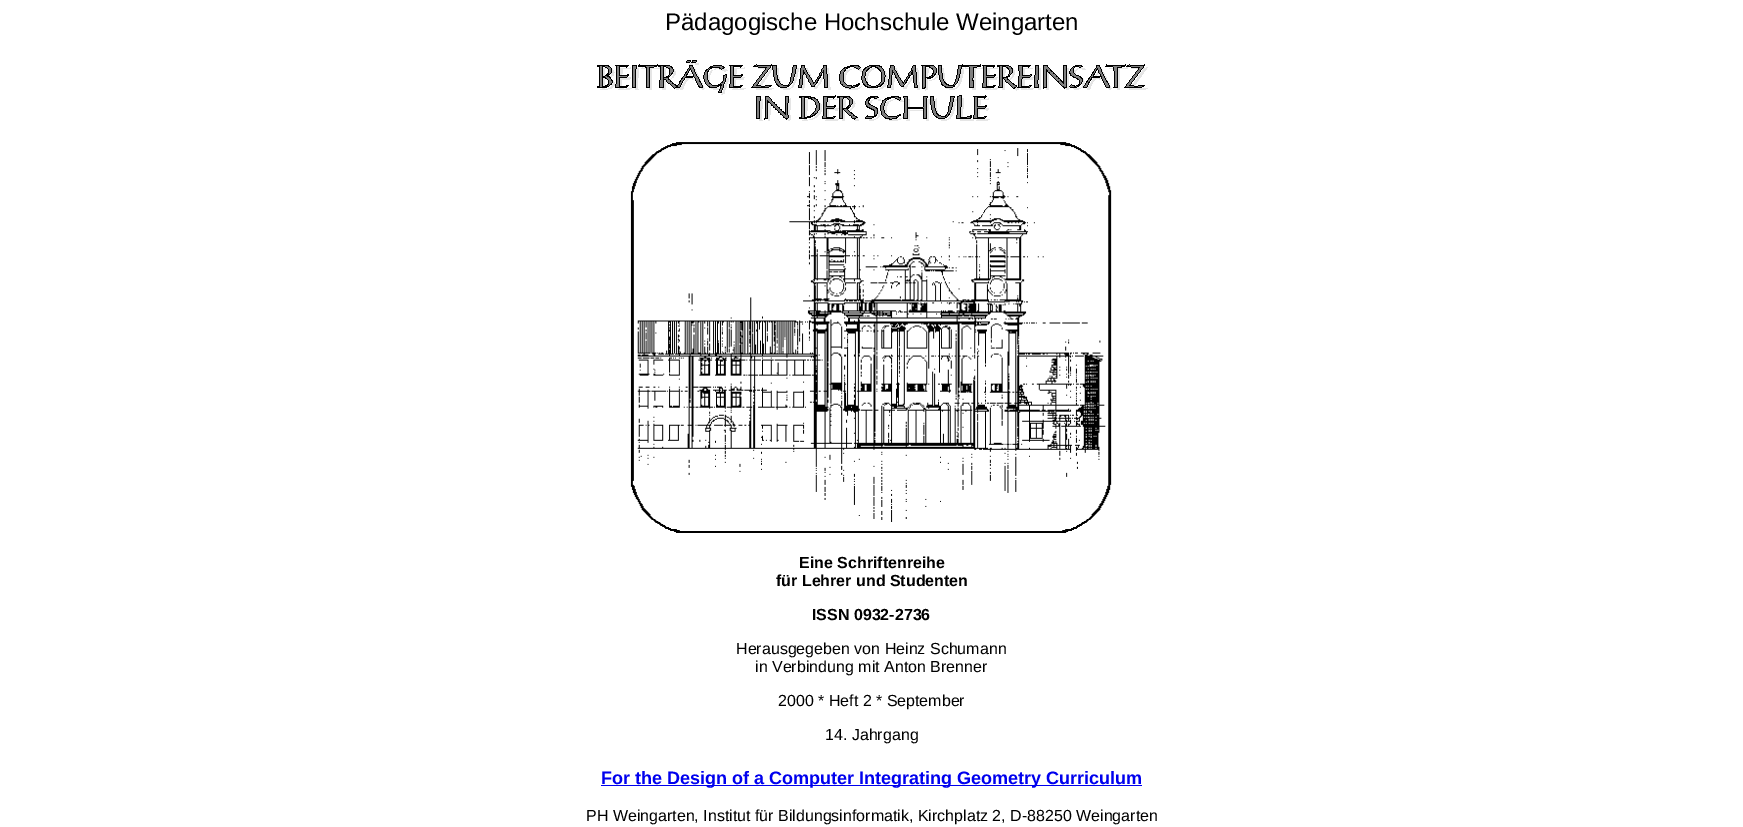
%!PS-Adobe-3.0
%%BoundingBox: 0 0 1743 827
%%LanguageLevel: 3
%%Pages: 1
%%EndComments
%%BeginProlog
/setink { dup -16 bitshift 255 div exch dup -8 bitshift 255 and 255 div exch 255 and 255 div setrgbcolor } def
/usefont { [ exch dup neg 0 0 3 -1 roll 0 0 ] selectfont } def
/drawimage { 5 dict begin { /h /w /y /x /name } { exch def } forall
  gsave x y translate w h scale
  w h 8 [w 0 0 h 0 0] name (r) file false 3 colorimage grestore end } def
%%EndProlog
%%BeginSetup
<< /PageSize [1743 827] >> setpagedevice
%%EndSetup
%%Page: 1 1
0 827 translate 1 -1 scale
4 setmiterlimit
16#FFFFFF setink
0 0 1743 827 rectfill
/LiberationSans-Regular 24 usefont
16#000000 setink
665 30 moveto (Pädagogische Hochschule Weingarten) show
(img1.raw) 597 60 551 61 drawimage
(img2.raw) 630 142 482 391 drawimage
/LiberationSans-Bold 16 usefont
[
    [(Eine Schriftenreihe) 799 568]
    [(für Lehrer und Studenten) 776 586]
    [(ISSN 0932-2736) 812 620]
] { aload pop moveto show } forall
/LiberationSans-Regular 16 usefont
[
    [(Herausgegeben von Heinz Schumann) 736 654]
    [(in Verbindung mit Anton Brenner) 755 672]
    [(2000 * Heft 2 * September) 778 706]
    [(14. Jahrgang) 825 740]
] { aload pop moveto show } forall
16#0000EE setink
601 785 541 1 rectfill
/LiberationSans-Bold 18 usefont
601 784 moveto (For the Design of a Computer Integrating Geometry Curriculum) show
/LiberationSans-Regular 16 usefont
16#000000 setink
586 821 moveto (PH Weingarten, Institut für Bildungsinformatik, Kirchplatz 2, D-88250 Weingarten) show
showpage
%%EOF
